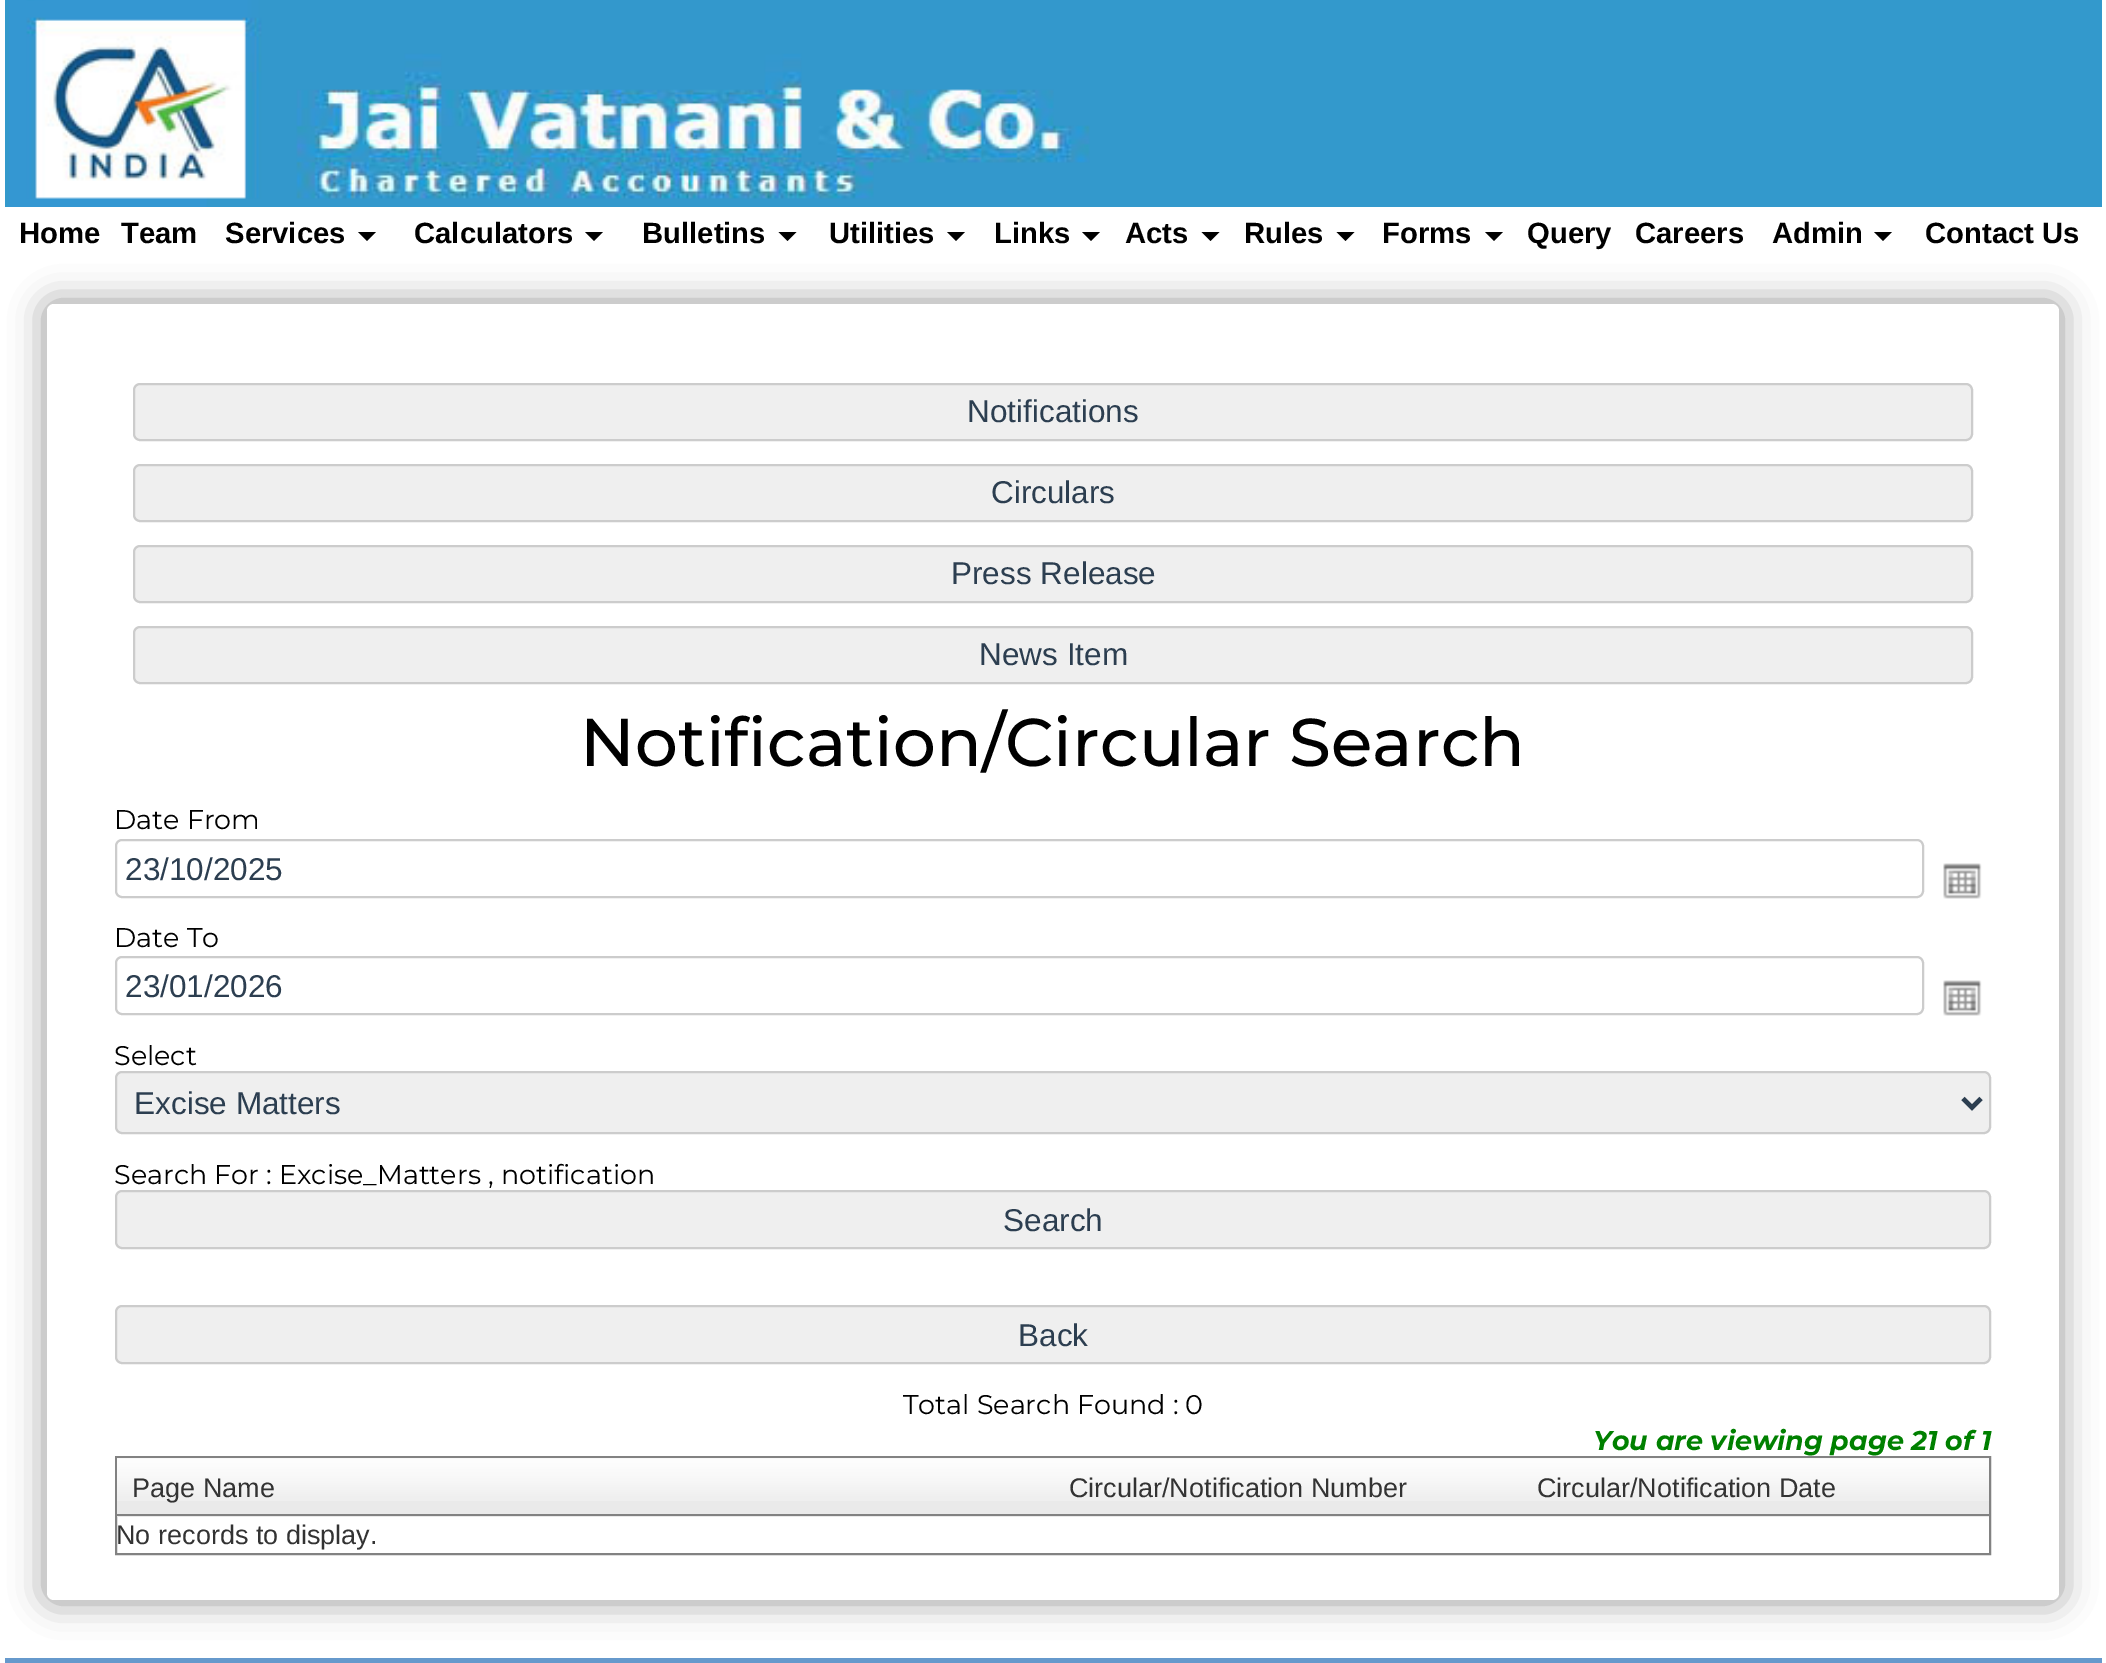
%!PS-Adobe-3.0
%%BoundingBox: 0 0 2106 1663
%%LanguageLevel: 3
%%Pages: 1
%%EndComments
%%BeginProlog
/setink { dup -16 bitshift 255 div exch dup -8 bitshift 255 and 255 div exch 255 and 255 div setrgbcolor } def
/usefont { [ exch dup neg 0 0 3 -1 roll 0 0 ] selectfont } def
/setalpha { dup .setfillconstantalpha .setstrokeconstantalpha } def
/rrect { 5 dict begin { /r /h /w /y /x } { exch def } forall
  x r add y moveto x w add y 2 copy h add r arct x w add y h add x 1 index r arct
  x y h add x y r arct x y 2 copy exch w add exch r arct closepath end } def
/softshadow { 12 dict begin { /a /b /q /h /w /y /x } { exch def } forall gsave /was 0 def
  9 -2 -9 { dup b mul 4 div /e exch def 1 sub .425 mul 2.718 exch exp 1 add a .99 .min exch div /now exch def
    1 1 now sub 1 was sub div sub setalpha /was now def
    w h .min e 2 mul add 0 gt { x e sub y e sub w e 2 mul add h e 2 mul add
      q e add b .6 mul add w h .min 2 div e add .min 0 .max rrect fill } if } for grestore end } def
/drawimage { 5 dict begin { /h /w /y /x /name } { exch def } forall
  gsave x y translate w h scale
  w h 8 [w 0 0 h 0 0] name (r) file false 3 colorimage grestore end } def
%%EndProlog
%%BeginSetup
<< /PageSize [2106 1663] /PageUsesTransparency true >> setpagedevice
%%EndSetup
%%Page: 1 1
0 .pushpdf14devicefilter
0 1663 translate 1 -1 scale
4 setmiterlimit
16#FFFFFF setink
0 0 2106 1663 rectfill
16#3399CC setink
5 0 2097 207 rectfill
(img1.raw) 9 0 1081 207 drawimage
/LiberationSans-Bold 29.25 usefont
16#000000 setink
[
    [(Home) 19 243]
    [(Team) 121 243]
    [(Services) 225 243]
] { aload pop moveto show } forall
358 232 moveto 376 232 lineto 367 241 lineto closepath fill
414 243 moveto (Calculators) show
585 232 moveto 603 232 lineto 594 241 lineto closepath fill
642 243 moveto (Bulletins) show
778.5 232 moveto 796.5 232 lineto 787.5 241 lineto closepath fill
829 243 moveto (Utilities) show
947 232 moveto 965 232 lineto 956 241 lineto closepath fill
994 243 moveto (Links) show
1082 232 moveto 1100 232 lineto 1091 241 lineto closepath fill
1125 243 moveto (Acts) show
1201.5 232 moveto 1219.5 232 lineto 1210.5 241 lineto closepath fill
1244 243 moveto (Rules) show
1336.5 232 moveto 1354.5 232 lineto 1345.5 241 lineto closepath fill
1382 243 moveto (Forms) show
1485 232 moveto 1503 232 lineto 1494 241 lineto closepath fill
[
    [(Query) 1527 243]
    [(Careers) 1635 243]
    [(Admin) 1772 243]
] { aload pop moveto show } forall
1874 232 moveto 1892 232 lineto 1883 241 lineto closepath fill
1925 243 moveto (Contact Us) show
45 302 2016 1300 9 17 0.4 softshadow
16#FFFFFF setink
47 304 2012 1296 7 rrect fill
16#EFEFEF setink
134 384 1838 56 6 rrect gsave fill grestore
16#CCCCCC setink
2 setlinewidth
stroke
/LiberationSans-Regular 31.5 usefont
16#2C3E50 setink
967 422 moveto (Notifications) show
16#EFEFEF setink
134 465 1838 56 6 rrect gsave fill grestore
16#CCCCCC setink
stroke
16#2C3E50 setink
991 503 moveto (Circulars) show
16#EFEFEF setink
134 546 1838 56 6 rrect gsave fill grestore
16#CCCCCC setink
stroke
16#2C3E50 setink
951 584 moveto (Press Release) show
16#EFEFEF setink
134 627 1838 56 6 rrect gsave fill grestore
16#CCCCCC setink
stroke
16#2C3E50 setink
979 665 moveto (News Item) show
/Montserrat-Medium 67.5 usefont
16#000000 setink
580 766 moveto (Notification/Circular Search) show
/Montserrat-Regular 27 usefont
114 829 moveto (Date From) show
16#CCCCCC setink
116 840 1807 57 6 rrect stroke
/LiberationSans-Regular 31.5 usefont
16#2C3E50 setink
125 880 moveto (23/10/2025) show
(img2.raw) 1943 863 39 36 drawimage
/Montserrat-Regular 27 usefont
16#000000 setink
114 947 moveto (Date To) show
16#CCCCCC setink
116 957 1807 57 6 rrect stroke
/LiberationSans-Regular 31.5 usefont
16#2C3E50 setink
125 997 moveto (23/01/2026) show
(img2.raw) 1943 980 39 36 drawimage
/Montserrat-Regular 27 usefont
16#000000 setink
114 1065 moveto (Select) show
16#EFEFEF setink
116 1072 1874 61 6 rrect gsave fill grestore
16#CCCCCC setink
stroke
16#2C3E50 setink
4.5 setlinewidth
1963 1098.5 moveto 1972 1107.5 lineto 1981 1098.5 lineto stroke
/LiberationSans-Regular 31.5 usefont
134 1114 moveto (Excise Matters) show
/Montserrat-Regular 27 usefont
16#000000 setink
114 1184 moveto (Search For : Excise_Matters , notification) show
16#EFEFEF setink
116 1191 1874 57 6 rrect gsave fill grestore
16#CCCCCC setink
2 setlinewidth
stroke
/LiberationSans-Regular 31.5 usefont
16#2C3E50 setink
1003 1231 moveto (Search) show
16#EFEFEF setink
116 1306 1874 57 6 rrect gsave fill grestore
16#CCCCCC setink
stroke
16#2C3E50 setink
1018 1346 moveto (Back) show
/Montserrat-Regular 27 usefont
16#000000 setink
903 1414 moveto (Total Search Found : 0) show
/Montserrat-BoldItalic 27 usefont
16#008000 setink
1593 1450 moveto (You are viewing page 21 of 1) show
16#828282 setink
116 1457 1874 97 rectstroke
16#EAEAEA setink
117 1458 1872 59 rectfill
(img3.raw) 117 1458 936 43 drawimage
16#828282 setink
117 1514 1872 2 rectfill
/LiberationSans-Regular 27 usefont
16#333333 setink
132 1497 moveto (Page Name) show
(img4.raw) 1053 1458 468 43 drawimage
1069 1497 moveto (Circular/Notification Number) show
(img4.raw) 1521 1458 468 43 drawimage
1537 1497 moveto (Circular/Notification Date) show
116 1544 moveto (No records to display.) show
16#6699CC setink
5 1658 2097 5 rectfill
.poppdf14devicefilter showpage
%%EOF
